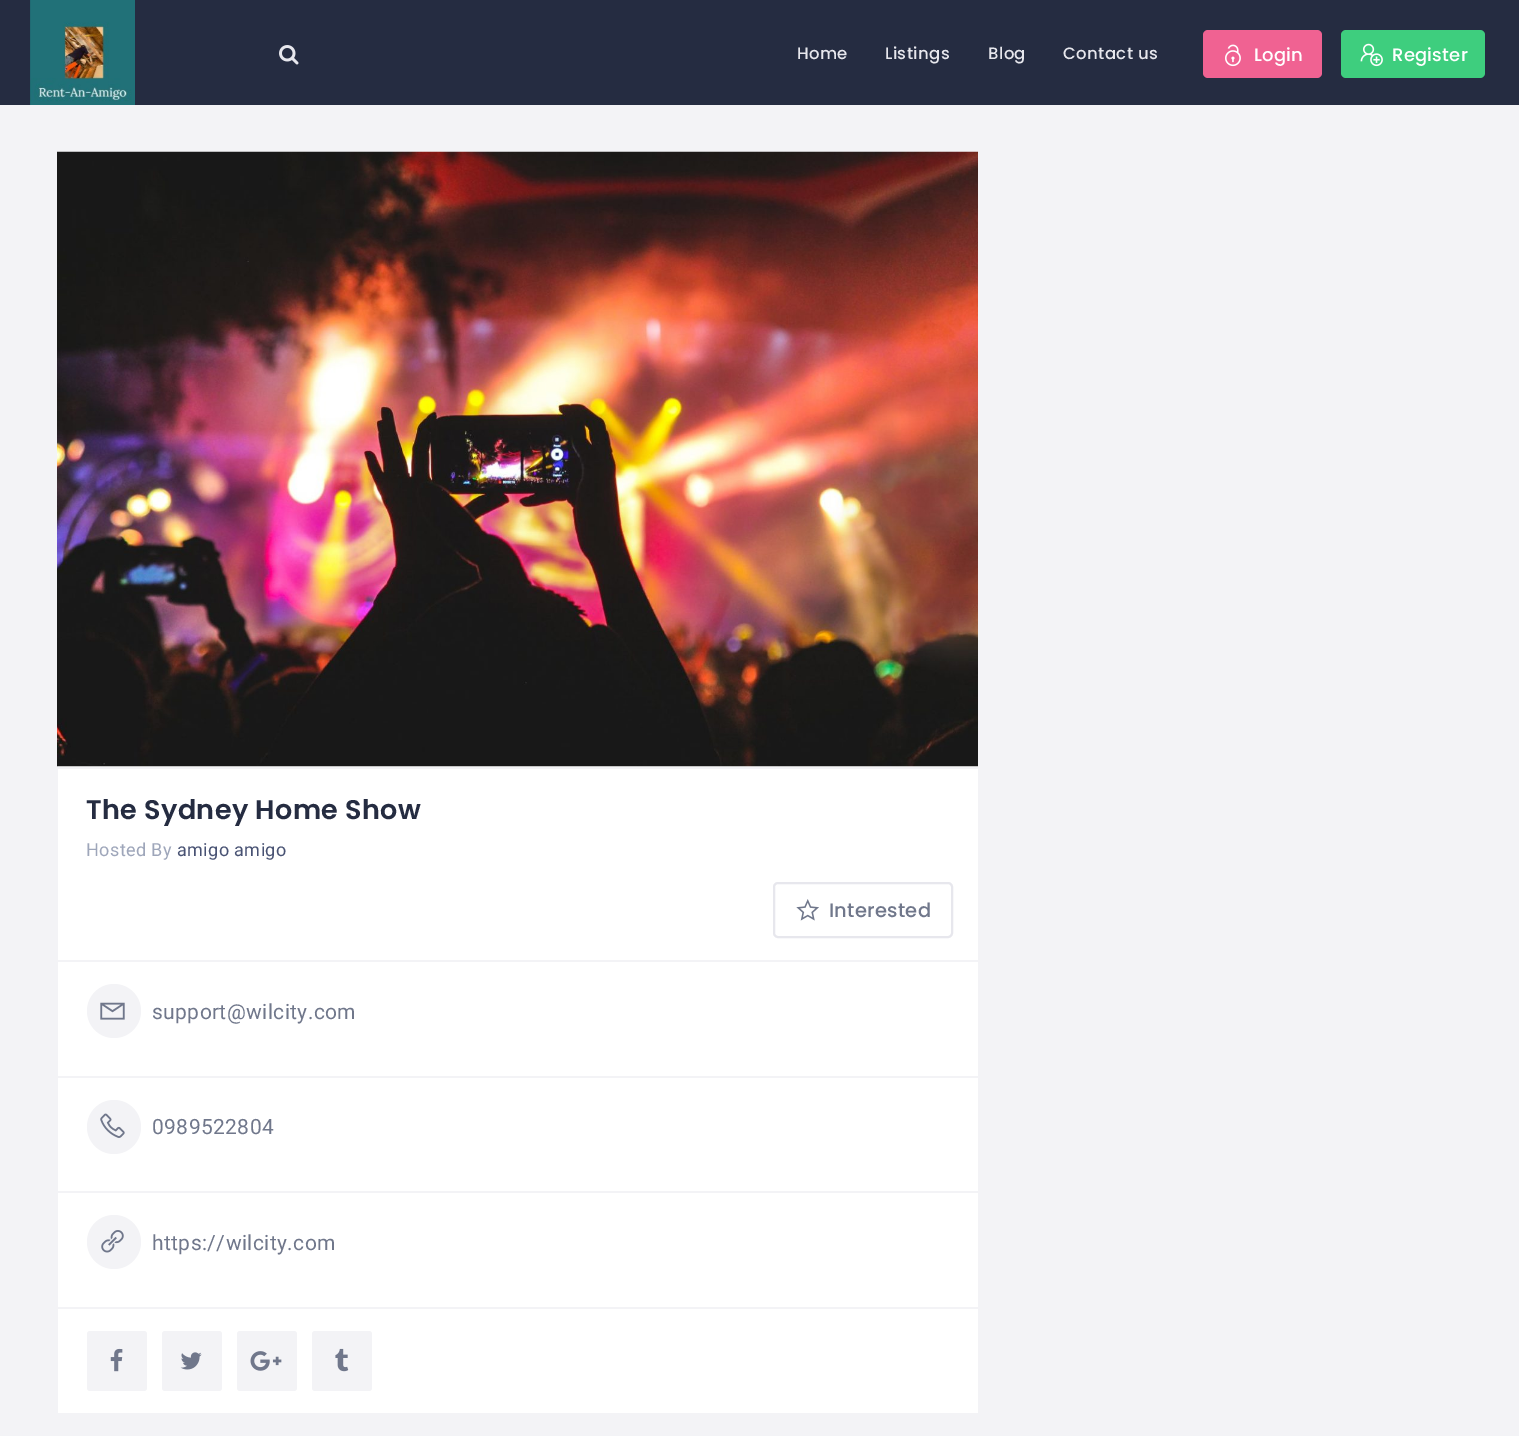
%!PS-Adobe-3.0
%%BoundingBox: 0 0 1519 1436
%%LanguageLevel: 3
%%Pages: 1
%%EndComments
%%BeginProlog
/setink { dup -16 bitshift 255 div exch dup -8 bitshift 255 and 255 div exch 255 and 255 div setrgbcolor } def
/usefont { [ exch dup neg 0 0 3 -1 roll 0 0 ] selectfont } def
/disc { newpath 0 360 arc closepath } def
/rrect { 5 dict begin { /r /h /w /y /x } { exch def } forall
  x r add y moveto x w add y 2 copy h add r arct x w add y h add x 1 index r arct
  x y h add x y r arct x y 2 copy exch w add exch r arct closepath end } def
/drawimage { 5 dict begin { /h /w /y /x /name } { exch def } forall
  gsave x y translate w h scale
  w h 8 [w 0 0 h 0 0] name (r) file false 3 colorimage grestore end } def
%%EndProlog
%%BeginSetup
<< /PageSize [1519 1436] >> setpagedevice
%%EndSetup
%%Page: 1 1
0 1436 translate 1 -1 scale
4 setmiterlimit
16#F3F3F6 setink
0 0 1519 1436 rectfill
16#252C41 setink
0 0 1519 105 rectfill
(img1.raw) 30 0 105 105 drawimage
(img2.raw) 279 45 20 20 drawimage
/Poppins-Medium 16.5 usefont
16#E7E7ED setink
797 59 moveto 0.4 0 (Home) ashow
885 59 moveto 0.4 0 (Listings) ashow
988 59 moveto 0.4 0 (Blog) ashow
1063 59 moveto 0.4 0 (Contact us) ashow
16#F06292 setink
1203 30 119 48 5 rrect fill
(img3.raw) 1225 44 16 23 drawimage
/Poppins-Medium 18 usefont
16#FFFFFF setink
1254 61 moveto 0.25 0 (Login) ashow
16#3ECE7E setink
1341 30 144 48 5 rrect fill
(img4.raw) 1360 43 23 24 drawimage
16#FFFFFF setink
1392 61 moveto 0.25 0 (Register) ashow
58 766 920 647 rectfill
(img5.raw) 57 151 921 616 drawimage
16#F3F3F6 setink
57 767 921 2 rectfill
/Poppins-SemiBold 27 usefont
16#252C41 setink
86 819 moveto 0.4 0 (The Sydney Home Show) ashow
/Roboto-Regular 18 usefont
16#9EA6BA setink
86 856 moveto 0.4 0 (Hosted By) ashow
16#485273 setink
177 856 moveto 0.4 0 (amigo amigo) ashow
16#E7E7ED setink
2 setlinewidth
774 883 178 54 4 rrect stroke
(img6.raw) 796 899 23 22 drawimage
/Poppins-Medium 19.5 usefont
16#70778B setink
829 917 moveto 0.25 0 (Interested) ashow
16#F3F3F6 setink
57 960 921 2 rectfill
114 1011 27 disc fill
(img7.raw) 100 1002 25 18 drawimage
/Roboto-Regular 21 usefont
16#70778B setink
152 1019 moveto 0.4 0 (support@wilcity.com) ashow
16#F3F3F6 setink
57 1076 921 2 rectfill
114 1127 27 disc fill
(img8.raw) 100 1113 25 25 drawimage
16#70778B setink
152 1134 moveto 0.4 0 (0989522804) ashow
16#F3F3F6 setink
57 1191 921 2 rectfill
114 1242 27 disc fill
(img9.raw) 101 1230 23 23 drawimage
16#70778B setink
152 1250 moveto 0.4 0 (https://wilcity.com) ashow
16#F3F3F6 setink
57 1307 921 2 rectfill
87 1331 60 60 3 rrect fill
(img10.raw) 110 1348 13 24 drawimage
162 1331 60 60 3 rrect fill
(img11.raw) 180 1352 22 18 drawimage
237 1331 60 60 3 rrect fill
(img12.raw) 250 1351 32 20 drawimage
312 1331 60 60 3 rrect fill
(img13.raw) 335 1348 14 24 drawimage
showpage
%%EOF
